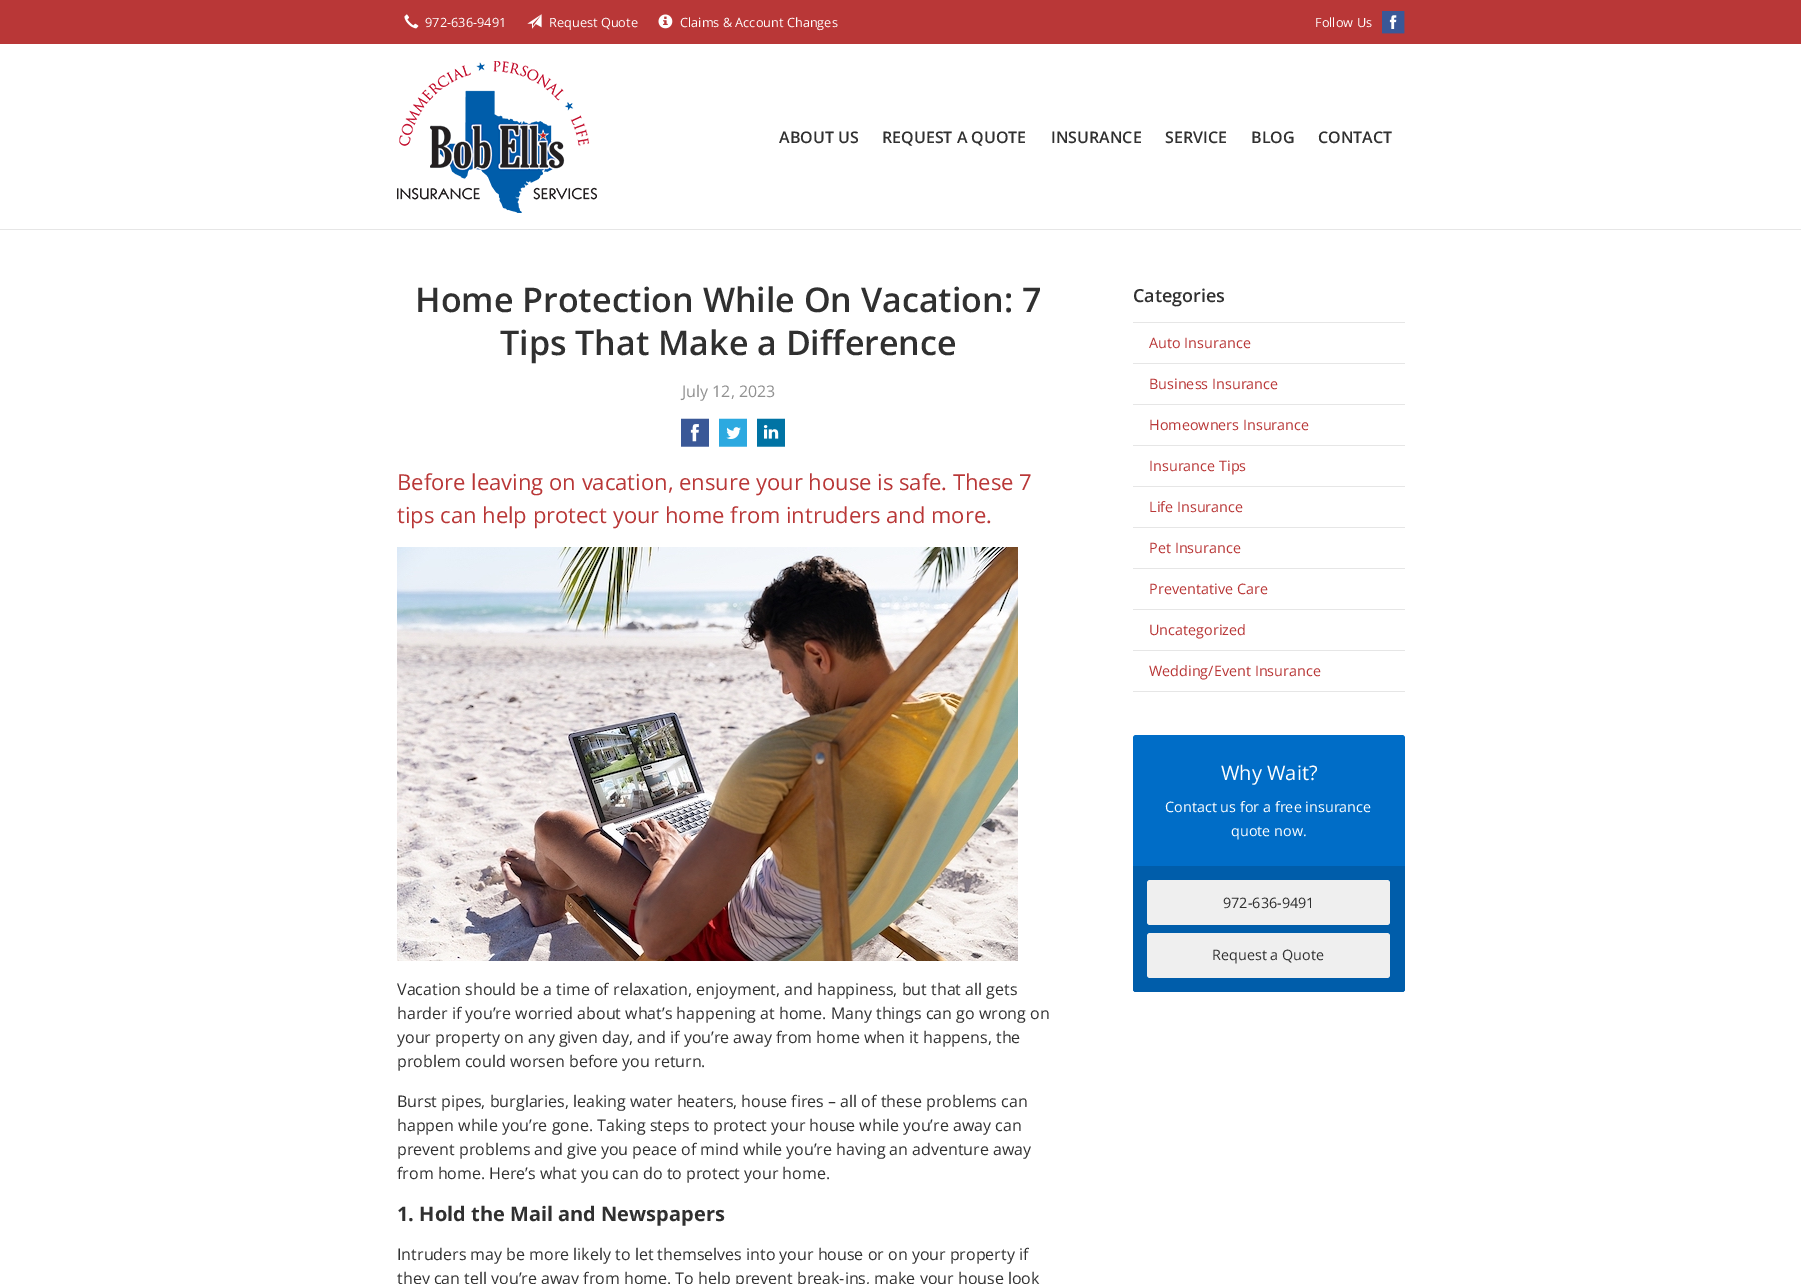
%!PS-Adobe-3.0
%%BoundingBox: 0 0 1801 1284
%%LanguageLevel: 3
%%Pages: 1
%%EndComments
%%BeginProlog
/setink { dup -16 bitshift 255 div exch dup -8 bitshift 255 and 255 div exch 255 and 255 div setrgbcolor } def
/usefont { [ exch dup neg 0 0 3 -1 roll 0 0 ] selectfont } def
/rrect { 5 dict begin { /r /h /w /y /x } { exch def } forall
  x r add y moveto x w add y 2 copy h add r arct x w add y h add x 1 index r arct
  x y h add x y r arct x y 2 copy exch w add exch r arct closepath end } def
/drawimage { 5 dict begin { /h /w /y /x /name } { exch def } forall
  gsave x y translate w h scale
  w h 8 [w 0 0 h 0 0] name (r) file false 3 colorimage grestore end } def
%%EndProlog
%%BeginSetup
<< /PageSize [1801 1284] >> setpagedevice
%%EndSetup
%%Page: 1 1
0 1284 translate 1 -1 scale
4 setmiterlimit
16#B93737 setink
0 0 1801 1284 rectfill
(img1.raw) 404 14 15 15 drawimage
/OpenSans-Regular 12.75 usefont
16#FFFFFF setink
425 27 moveto (972-636-9491) show
(img2.raw) 527 14 15 15 drawimage
549 27 moveto (Request Quote) show
(img3.raw) 658 14 15 15 drawimage
680 27 moveto (Claims & Account Changes) show
1315 27 moveto (Follow Us) show
1389 15 8 14 rectfill
(img4.raw) 1382 11 23 23 drawimage
0 44 1801 185 rectfill
16#E6E6E6 setink
0 229 1801 1 rectfill
(img5.raw) 397 61 200 152 drawimage
/OpenSans-SemiBold 16 usefont
16#303030 setink
[
    [(ABOUT US) 779 143]
    [(REQUEST A QUOTE) 882 143]
    [(INSURANCE) 1051 143]
    [(SERVICE) 1165 143]
    [(BLOG) 1251 143]
    [(CONTACT) 1318 143]
] { aload pop moveto show } forall
16#FFFFFF setink
0 230 1801 1054 rectfill
/OpenSans-SemiBold 34 usefont
16#303030 setink
415 312 moveto (Home Protection While On Vacation: 7) show
500 355 moveto (Tips That Make a Difference) show
/OpenSans-Regular 16 usefont
16#909090 setink
682 397 moveto (July 12, 2023) show
(img6.raw) 681 418 28 29 drawimage
(img7.raw) 719 418 28 29 drawimage
(img8.raw) 757 418 28 29 drawimage
/OpenSans-Regular 22 usefont
16#B93737 setink
397 490 moveto (Before leaving on vacation, ensure your house is safe. These 7) show
397 523 moveto (tips can help protect your home from intruders and more.) show
(img9.raw) 397 547 621 414 drawimage
/OpenSans-Regular 16 usefont
16#303030 setink
[
    [(Vacation should be a time of relaxation, enjoyment, and happiness, but that all gets) 397 995]
    [(harder if you’re worried about what’s happening at home. Many things can go wrong on) 397 1019]
    [(your property on any given day, and if you’re away from home when it happens, the) 397 1043]
    [(problem could worsen before you return.) 397 1067]
    [(Burst pipes, burglaries, leaking water heaters, house fires – all of these problems can) 397 1107]
    [(happen while you’re gone. Taking steps to protect your house while you’re away can) 397 1131]
    [(prevent problems and give you peace of mind while you’re having an adventure away) 397 1155]
    [(from home. Here’s what you can do to protect your home.) 397 1179]
] { aload pop moveto show } forall
/OpenSans-Bold 20 usefont
397 1221 moveto (1. Hold the Mail and Newspapers) show
/OpenSans-Regular 16 usefont
397 1260 moveto (Intruders may be more likely to let themselves into your house or on your property if) show
397 1284 moveto (they can tell you’re away from home. To help prevent break-ins, make your house look) show
/OpenSans-SemiBold 18 usefont
1133 302 moveto (Categories) show
16#E6E6E6 setink
1133 322 272 1 rectfill
1133 363 272 1 rectfill
/OpenSans-Regular 14.4 usefont
16#B93737 setink
1149 348 moveto (Auto Insurance) show
16#E6E6E6 setink
1133 404 272 1 rectfill
16#B93737 setink
1149 389 moveto (Business Insurance) show
16#E6E6E6 setink
1133 445 272 1 rectfill
16#B93737 setink
1149 430 moveto (Homeowners Insurance) show
16#E6E6E6 setink
1133 486 272 1 rectfill
16#B93737 setink
1149 471 moveto (Insurance Tips) show
16#E6E6E6 setink
1133 527 272 1 rectfill
16#B93737 setink
1149 512 moveto (Life Insurance) show
16#E6E6E6 setink
1133 568 272 1 rectfill
16#B93737 setink
1149 553 moveto (Pet Insurance) show
16#E6E6E6 setink
1133 609 272 1 rectfill
16#B93737 setink
1149 594 moveto (Preventative Care) show
16#E6E6E6 setink
1133 650 272 1 rectfill
16#B93737 setink
1149 635 moveto (Uncategorized) show
16#E6E6E6 setink
1133 691 272 1 rectfill
16#B93737 setink
1149 676 moveto (Wedding/Event Insurance) show
16#006DC7 setink
1133 735 272 257 3 rrect fill
/OpenSans-Regular 20 usefont
16#FFFFFF setink
1221 780 moveto (Why Wait?) show
/OpenSans-Regular 14.4 usefont
1165 812 moveto (Contact us for a free insurance) show
1231 836 moveto (quote now.) show
16#005DAA setink
1133 866 moveto 1405 866 lineto 1405 989 lineto 1405 990.5 1403.5 992 1402 992 curveto 1136 992 lineto 1134.5 992 1133 990.5 1133 989 curveto closepath fill
16#EFEFEF setink
1147 880 243 45 3 rrect fill
16#303030 setink
1223 908 moveto (972-636-9491) show
16#EFEFEF setink
1147 933 243 45 3 rrect fill
16#303030 setink
1212 960 moveto (Request a Quote) show
showpage
%%EOF
